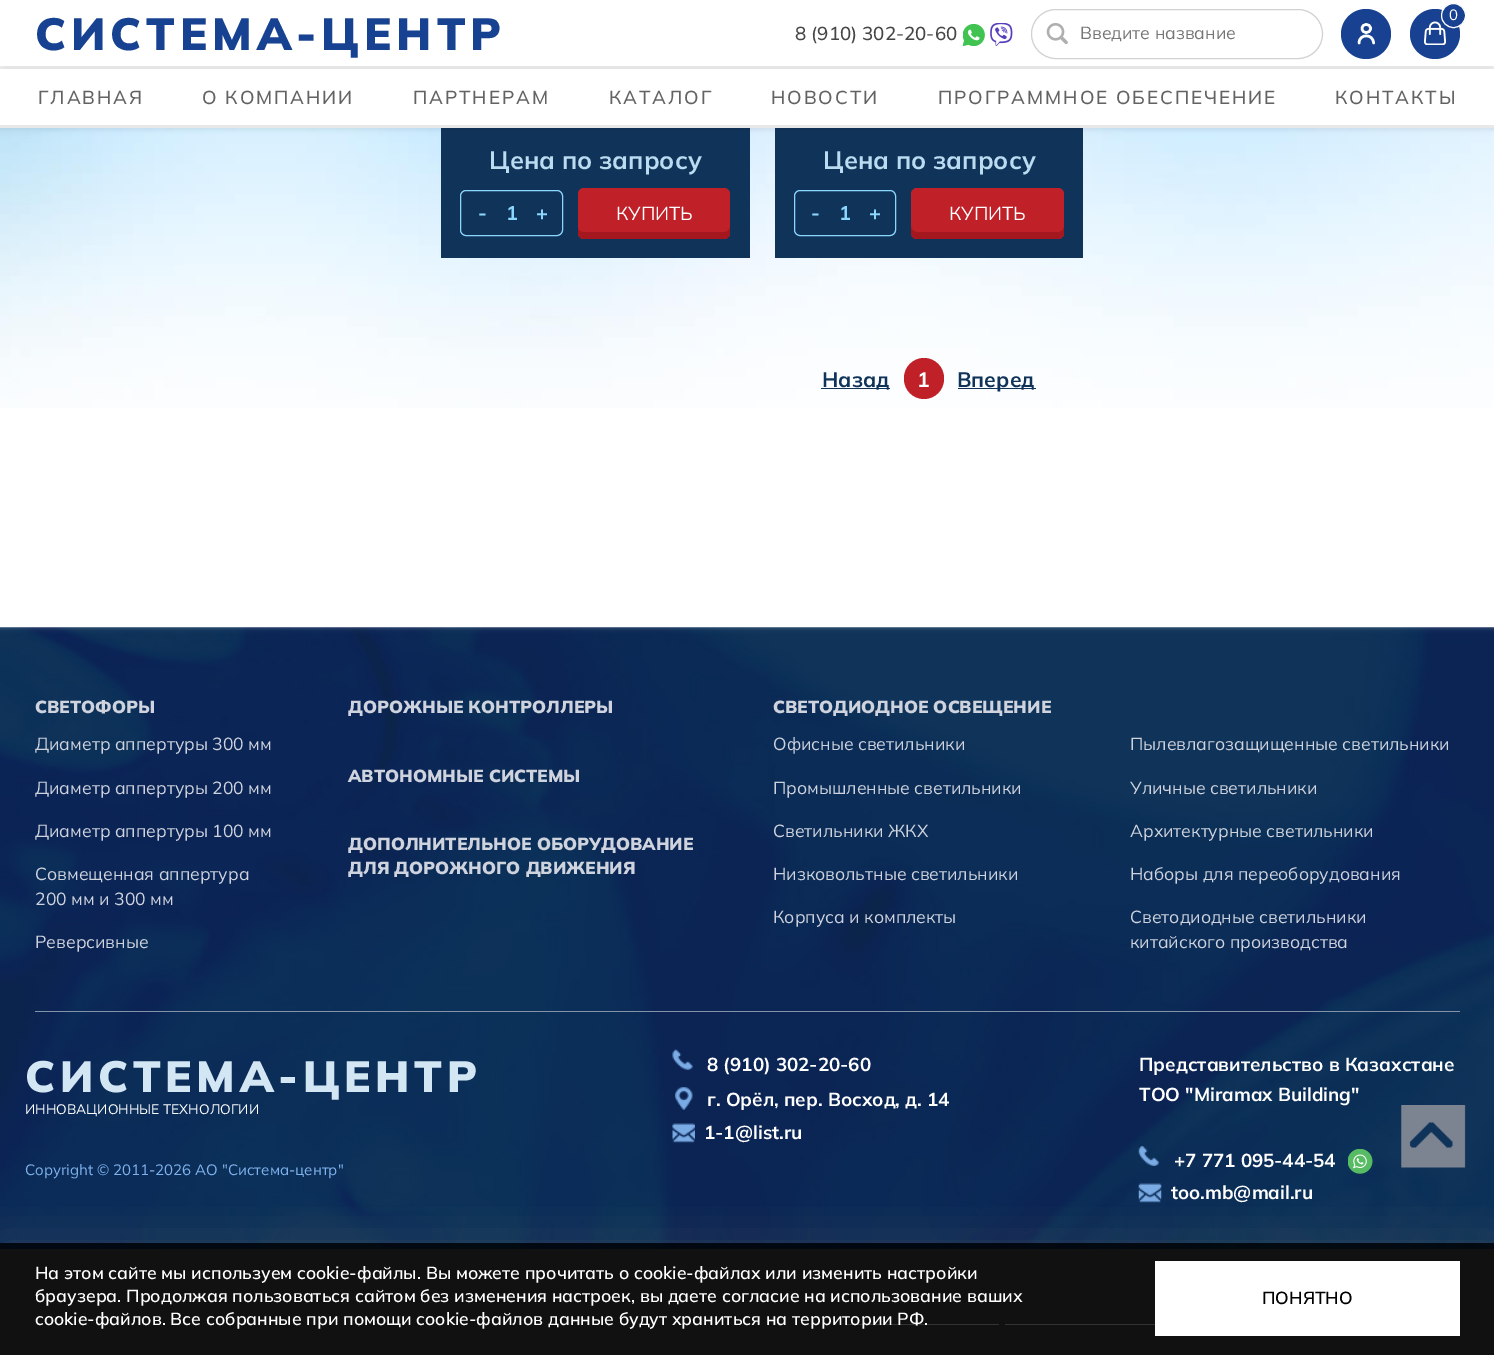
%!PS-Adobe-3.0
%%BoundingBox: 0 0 1494 1355
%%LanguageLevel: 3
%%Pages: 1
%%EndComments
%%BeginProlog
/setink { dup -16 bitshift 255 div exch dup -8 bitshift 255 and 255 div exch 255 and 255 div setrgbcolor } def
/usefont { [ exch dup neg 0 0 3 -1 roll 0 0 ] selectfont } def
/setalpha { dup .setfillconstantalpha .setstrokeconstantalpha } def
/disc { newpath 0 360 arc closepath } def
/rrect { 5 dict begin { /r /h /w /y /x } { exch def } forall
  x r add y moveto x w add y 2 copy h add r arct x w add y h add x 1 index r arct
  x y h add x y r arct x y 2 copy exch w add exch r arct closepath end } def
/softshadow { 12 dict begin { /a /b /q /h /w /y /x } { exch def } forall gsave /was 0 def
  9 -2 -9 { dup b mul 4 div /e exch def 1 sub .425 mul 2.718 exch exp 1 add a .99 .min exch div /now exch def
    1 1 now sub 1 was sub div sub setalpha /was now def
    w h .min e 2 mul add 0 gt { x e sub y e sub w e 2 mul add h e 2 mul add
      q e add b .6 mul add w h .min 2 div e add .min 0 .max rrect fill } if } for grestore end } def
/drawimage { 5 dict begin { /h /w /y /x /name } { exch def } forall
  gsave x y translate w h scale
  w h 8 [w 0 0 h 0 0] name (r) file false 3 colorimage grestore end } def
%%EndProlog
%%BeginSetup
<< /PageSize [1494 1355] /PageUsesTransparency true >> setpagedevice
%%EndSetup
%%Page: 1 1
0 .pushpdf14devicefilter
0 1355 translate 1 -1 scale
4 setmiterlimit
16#FFFFFF setink
0 0 1494 1355 rectfill
(img5.raw) 0 128 1494 280 drawimage
16#103359 setink
441 128 309 130 rectfill
775 128 308 130 rectfill
16#000000 setink
-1 -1 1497 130 0 3 0.1 softshadow
16#FFFFFF setink
0 0 1494 66 rectfill
16#184291 setink
1366 34 25 disc fill
16#FFFFFF setink
2.5 setlinewidth
1 setlinecap
1 setlinejoin
1359 43 moveto 1359 33.5 1373.5 33.5 1373.5 43 curveto 1370.5 28.5 moveto 1370.5 34 1362 34 1362 28.5 curveto 1362 23 1370.5 23 1370.5 28.5 curveto closepath stroke
16#184291 setink
1435 34 25 disc fill
(img1.raw) 1424 21 22 24 drawimage
1453.5 15.5 12 disc gsave fill grestore
16#FFFFFF setink
1 setlinewidth
0 setlinecap
0 setlinejoin
stroke
/Mulish-Regular 15 usefont
1449 20 moveto (0) show
/Mulish-Black 45 usefont
16#174191 setink
35 50 moveto 5 0 (СИСТЕМА-ЦЕНТР) ashow
/Mulish-Medium 18.75 usefont
16#464646 setink
795 40 moveto (8 \(910\) 302-20-60) show
(img2.raw) 963 24 22 22 drawimage
(img3.raw) 990 23 23 23 drawimage
16#D1D1D1 setink
1031.5 9.5 291 49 24.5 rrect stroke
(img4.raw) 1046 23 22 22 drawimage
/Mulish-Regular 17.5 usefont
16#757575 setink
1080 39 moveto (Введите название) show
[
    [0 69 1494 56 16#FFFFFF]
    [0 66 1 3 16#E8E8E8]
    [0 125 1494 3 16#E8E8E8]
] { aload pop setink rectfill } forall
/Mulish-Medium 18.75 usefont
16#636363 setink
38 104 moveto 1.9 0 (ГЛАВНАЯ) ashow
202 104 moveto 1.9 0 (О КОМПАНИИ) ashow
413 104 moveto 1.9 0 (ПАРТНЕРАМ) ashow
609 104 moveto 1.9 0 (КАТАЛОГ) ashow
771 104 moveto 1.9 0 (НОВОСТИ) ashow
938 104 moveto 1.9 0 (ПРОГРАММНОЕ ОБЕСПЕЧЕНИЕ) ashow
1335 104 moveto 1.9 0 (КОНТАКТЫ) ashow
/Mulish-Bold 25 usefont
16#BADBF0 setink
489 169 moveto (Цена по запросу) show
16#8BD6FD setink
460.5 190.5 102 45 5.5 rrect stroke
/Mulish-Bold 20 usefont
[
    [(-) 478 220]
    [(1) 506 220]
    [(+) 536 220]
] { aload pop moveto show } forall
16#C02129 setink
578 188 152 51 6 rrect fill
16#A5171E setink
578 226 moveto 578 233 lineto 578 236 581 239 584 239 curveto 724 239 lineto 727 239 730 236 730 233 curveto 730 226 lineto 730 230 727 232 724 232 curveto 584 232 lineto 580 232 578 230 578 226 curveto closepath fill
/Mulish-Regular 18.75 usefont
16#FFFFFF setink
616 220 moveto (КУПИТЬ) show
/Mulish-Bold 25 usefont
16#BADBF0 setink
823 169 moveto (Цена по запросу) show
16#8BD6FD setink
794.5 190.5 101 45 5.5 rrect stroke
/Mulish-Bold 20 usefont
[
    [(-) 811 220]
    [(1) 839 220]
    [(+) 869 220]
] { aload pop moveto show } forall
16#C02129 setink
911 188 153 51 6 rrect fill
16#A5171E setink
911 226 moveto 911 233 lineto 911 236 914 239 917 239 curveto 1058 239 lineto 1061 239 1064 236 1064 233 curveto 1064 226 lineto 1064 230 1061 232 1058 232 curveto 918 232 lineto 914 232 911 230 911 226 curveto closepath fill
/Mulish-Regular 18.75 usefont
16#FFFFFF setink
949 220 moveto (КУПИТЬ) show
16#103359 setink
821 388 69 1 rectfill
/Mulish-Bold 21 usefont
822 387 moveto (Назад) show
16#C02129 setink
904 358 40 41 20 rrect fill
16#FFFFFF setink
917 387 moveto (1) show
16#103359 setink
958 388 78 1 rectfill
957 387 moveto (Вперед) show
0 1248 1494 1 rectfill
(img6.raw) 0 627 1494 622 drawimage
16#8593AA setink
35 1011 1425 1 rectfill
/Mulish-Black 17.5 usefont
16#CED3DD setink
35 713 moveto (CВЕТОФОРЫ) show
/Mulish-Regular 17.5 usefont
[
    [(Диаметр аппертуры 300 мм) 35 750]
    [(Диаметр аппертуры 200 мм) 35 794]
    [(Диаметр аппертуры 100 мм) 35 837]
    [(Совмещенная аппертура) 35 880]
    [(200 мм и 300 мм) 35 905]
    [(Реверсивные) 35 948]
] { aload pop moveto show } forall
/Mulish-Black 17.5 usefont
[
    [(ДОРОЖНЫЕ КОНТРОЛЛЕРЫ) 348 713]
    [(АВТОНОМНЫЕ СИСТЕМЫ) 348 782]
    [(ДОПОЛНИТЕЛЬНОЕ ОБОРУДОВАНИЕ) 348 850]
    [(ДЛЯ ДОРОЖНОГО ДВИЖЕНИЯ) 348 874]
    [(СВЕТОДИОДНОЕ ОСВЕЩЕНИЕ) 773 713]
] { aload pop moveto show } forall
/Mulish-Regular 17.5 usefont
[
    [(Офисные светильники) 773 750]
    [(Пылевлагозащищенные светильники) 1130 750]
    [(Промышленные светильники) 773 794]
    [(Уличные светильники) 1130 794]
    [(Светильники ЖКХ) 773 837]
    [(Архитектурные светильники) 1130 837]
    [(Низковольтные светильники) 773 880]
    [(Наборы для переоборудования) 1130 880]
    [(Корпуса и комплекты) 773 923]
    [(Светодиодные светильники) 1130 923]
    [(китайского производства) 1130 948]
] { aload pop moveto show } forall
/Mulish-Black 43.75 usefont
16#D3E6F3 setink
25 1092 moveto 4.75 0 (СИСТЕМА-ЦЕНТР) ashow
/Mulish-Regular 13.75 usefont
16#FFFFFF setink
25 1114 moveto (ИННОВАЦИОННЫЕ ТЕХНОЛОГИИ) show
/Mulish-Regular 15 usefont
16#7FB2EC setink
25 1175 moveto (Copyright © 2011-2026 АО "Система-центр") show
(img7.raw) 672 1049 21 21 drawimage
/Mulish-Bold 18.75 usefont
16#FFFFFF setink
707 1071 moveto (8 \(910\) 302-20-60) show
(img8.raw) 675 1087 18 23 drawimage
707 1106 moveto (г. Орёл, пер. Восход, д. 14) show
(img9.raw) 672 1123 23 20 drawimage
[
    [(1-1@list.ru) 704 1139]
    [(Представительство в Казахстане) 1139 1071]
    [(TOO "Miramax Building") 1139 1101]
] { aload pop moveto show } forall
(img10.raw) 1138 1146 21 20 drawimage
1174 1167 moveto (+7 771 095-44-54) show
(img11.raw) 1348 1149 25 25 drawimage
(img12.raw) 1138 1183 24 20 drawimage
1171 1199 moveto (too.mb@mail.ru) show
(img13.raw) 1401 1105 65 63 drawimage
[
    [0 1249 1494 106 16#555555]
    [846 1324 153 1 16#FFFFFF]
    [1005 1324 150 1 16#FFFFFF]
] { aload pop setink rectfill } forall
gsave
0 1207 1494 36 rectclip
16#636363 setink
0 1246 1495 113 0 24 0.38 softshadow
grestore
0.8 setalpha
16#000000 setink
0 1243 1494 112 rectfill
/Mulish-SemiBold 17.5 usefont
1 setalpha
16#FFFFFF setink
[
    [(На этом сайте мы используем cookie-файлы. Вы можете прочитать о cookie-файлах или изменить настройки) 35 1279]
    [(браузера. Продолжая пользоваться сайтом без изменения настроек, вы даете согласие на использование ваших) 35 1302]
    [(cookie-файлов. Все собранные при помощи cookie-файлов данные будут храниться на территории РФ.) 35 1325]
] { aload pop moveto show } forall
1155 1261 305 75 rectfill
16#000000 setink
1262 1304 moveto (ПОНЯТНО) show
.poppdf14devicefilter showpage
%%EOF
